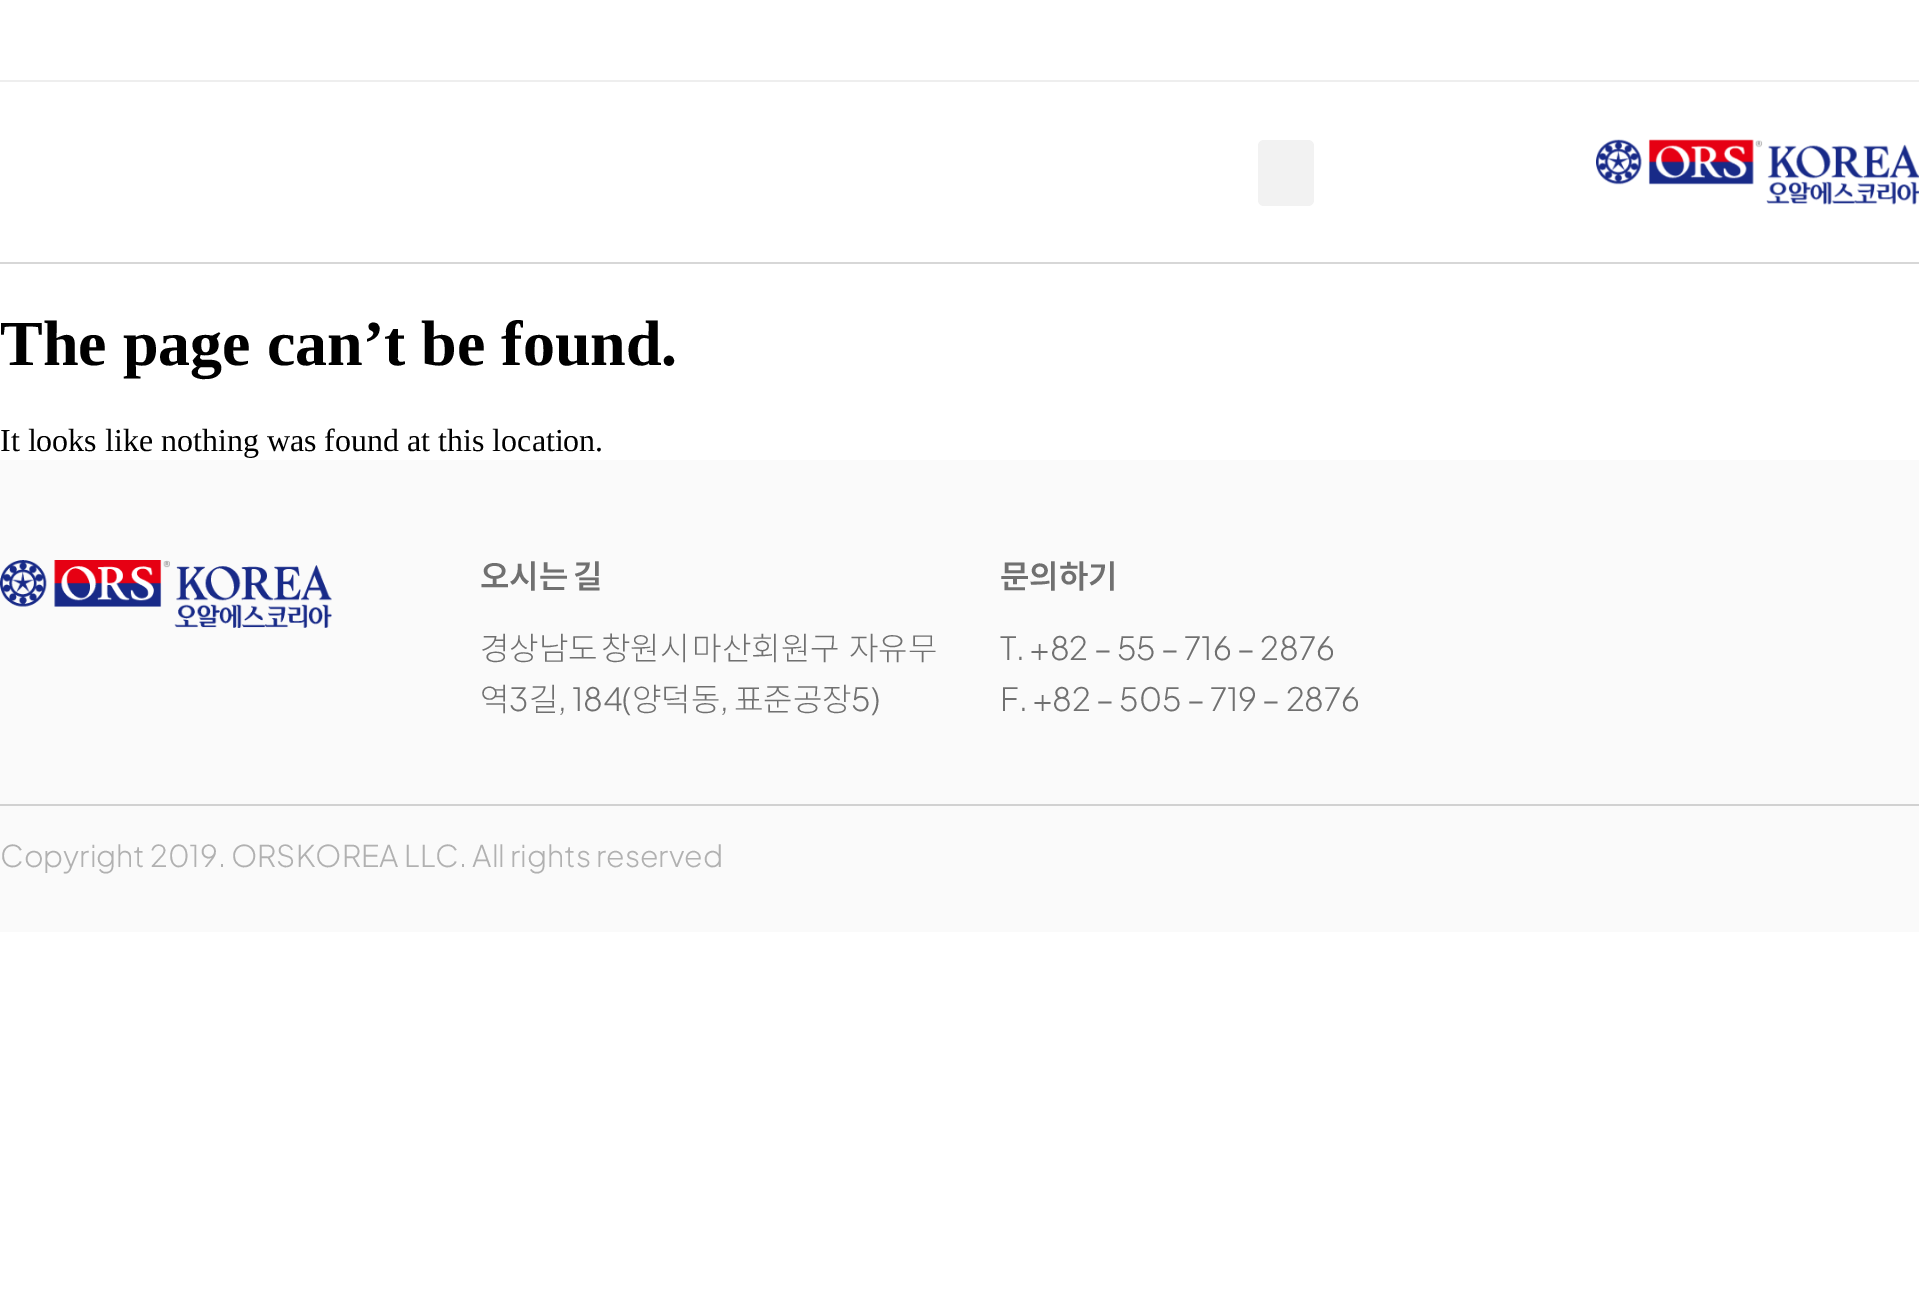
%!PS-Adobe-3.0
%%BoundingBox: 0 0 1919 1310
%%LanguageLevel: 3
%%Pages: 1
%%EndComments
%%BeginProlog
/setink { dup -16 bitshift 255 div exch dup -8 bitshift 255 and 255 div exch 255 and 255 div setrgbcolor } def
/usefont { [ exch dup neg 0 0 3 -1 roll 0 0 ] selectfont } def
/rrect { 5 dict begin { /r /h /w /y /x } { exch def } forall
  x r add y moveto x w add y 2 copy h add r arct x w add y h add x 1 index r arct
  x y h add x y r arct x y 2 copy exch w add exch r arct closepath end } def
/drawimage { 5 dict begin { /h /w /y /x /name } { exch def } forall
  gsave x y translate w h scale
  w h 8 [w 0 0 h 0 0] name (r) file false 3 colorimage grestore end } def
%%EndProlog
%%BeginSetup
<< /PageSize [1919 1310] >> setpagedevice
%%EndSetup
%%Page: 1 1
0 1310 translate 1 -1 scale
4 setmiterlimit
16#FFFFFF setink
0 0 1919 1310 rectfill
16#D7D7D7 setink
0 262 1919 2 rectfill
16#EEEEEE setink
0 80 1919 2 rectfill
16#F2F2F2 setink
1258 140 56 66 6 rrect fill
(img1.raw) 1596 139 323 66 drawimage
/LiberationSerif-Bold 64 usefont
16#000000 setink
0 365 moveto (The page can’t be found.) show
/LiberationSerif-Regular 32 usefont
0 451 moveto (It looks like nothing was found at this location.) show
16#FAFAFA setink
0 460 1919 472 rectfill
16#D1D1D1 setink
0 804 1919 2 rectfill
(img2.raw) 0 560 332 68 drawimage
/NotoSansKR-SemiBold 32 usefont
16#707070 setink
480 588 moveto -3 0 32 (오시는 길) widthshow
/NotoSansKR-Light 32 usefont
480 660 moveto -4 0 32 (경상남도 창원시 마산회원구) widthshow
849 660 moveto -4 0 32 (자유무) widthshow
480 711 moveto (역) show
/PlusJakartaSans-Light 32 usefont
509 711 moveto (3) show
/NotoSansKR-Light 32 usefont
529 711 moveto (길) show
/PlusJakartaSans-Light 32 usefont
558 711 moveto (, 184\() show
/NotoSansKR-Light 32 usefont
632 711 moveto (양덕동) show
/PlusJakartaSans-Light 32 usefont
720 711 moveto (,) show
/NotoSansKR-Light 32 usefont
734 711 moveto (표준공장) show
/PlusJakartaSans-Light 32 usefont
851 711 moveto (5\)) show
/NotoSansKR-SemiBold 32 usefont
1000 588 moveto (문의하기) show
/PlusJakartaSans-Light 32 usefont
1000 660 moveto (T. +82 – 55 – 716 – 2876) show
1000 711 moveto (F. +82 – 505 – 719 – 2876) show
/PlusJakartaSans-Light 30 usefont
16#B1B1B1 setink
0 867 moveto (Copyright 2019. ORSKOREA LLC. All rights reserved) show
showpage
%%EOF
